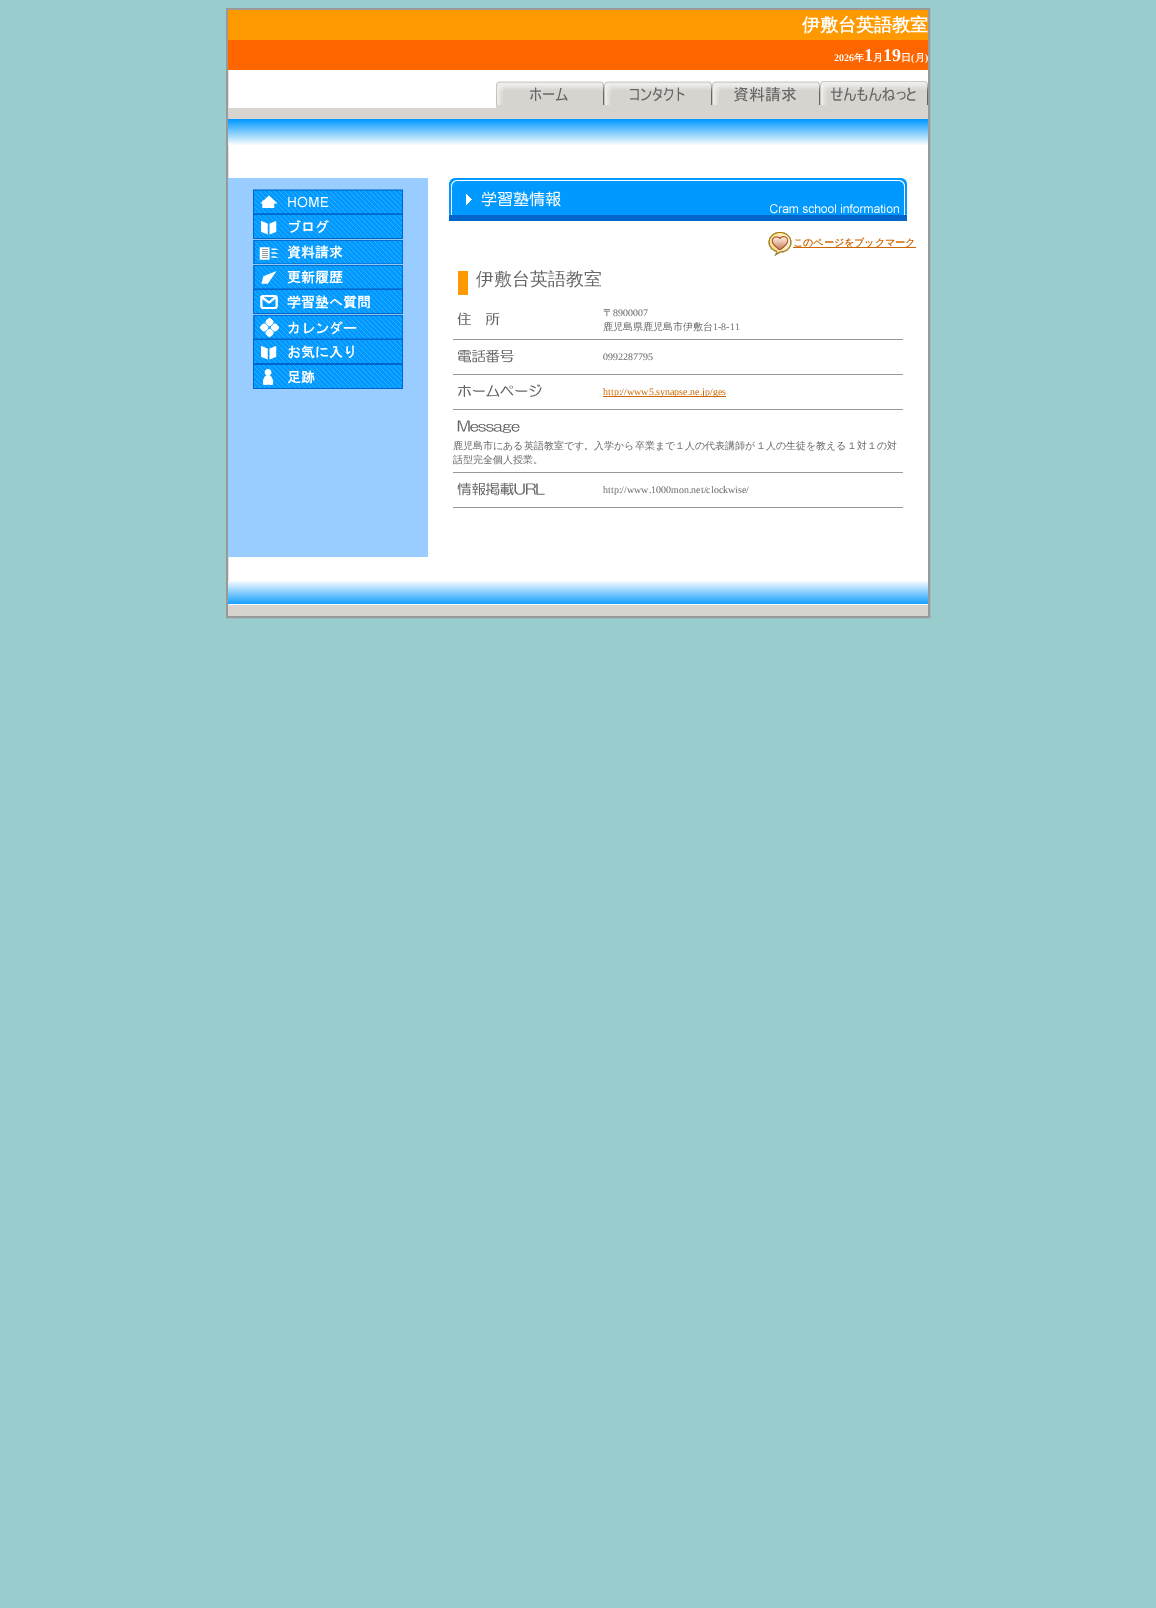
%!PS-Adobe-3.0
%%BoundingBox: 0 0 1156 1608
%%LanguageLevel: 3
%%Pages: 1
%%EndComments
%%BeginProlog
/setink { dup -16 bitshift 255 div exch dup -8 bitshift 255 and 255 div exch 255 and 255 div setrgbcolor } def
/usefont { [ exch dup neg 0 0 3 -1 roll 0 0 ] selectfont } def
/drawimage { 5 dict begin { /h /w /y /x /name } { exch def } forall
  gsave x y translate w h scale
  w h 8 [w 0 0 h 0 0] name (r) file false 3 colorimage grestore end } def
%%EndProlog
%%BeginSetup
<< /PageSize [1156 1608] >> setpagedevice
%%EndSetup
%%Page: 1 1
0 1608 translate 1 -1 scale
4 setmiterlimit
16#99CCCC setink
0 0 1156 1608 rectfill
16#FFFFFF setink
228 70 700 535 rectfill
16#999999 setink
226.5 8.5 703 609 rectstroke
227.5 9.5 701 607 rectstroke
16#FF9900 setink
228 10 700 30 rectfill
/WenQuanYiZenHei-Bold 18 usefont
16#FFFFFF setink
802 31 moveto (伊敷台英語教室) show
16#FF6600 setink
228 40 700 30 rectfill
/LiberationSerif-Bold 10 usefont
16#FFFFFF setink
834 61 moveto (2026) show
/WenQuanYiZenHei-Bold 10 usefont
854 61 moveto (年) show
/LiberationSerif-Bold 18 usefont
864 61 moveto (1) show
/WenQuanYiZenHei-Bold 10 usefont
873 61 moveto (月) show
/LiberationSerif-Bold 18 usefont
883 61 moveto (19) show
/WenQuanYiZenHei-Bold 10 usefont
901 61 moveto (日) show
/LiberationSerif-Bold 10 usefont
911 61 moveto (\() show
/WenQuanYiZenHei-Bold 10 usefont
915 61 moveto (月) show
/LiberationSerif-Bold 10 usefont
925 61 moveto (\)) show
(img1.raw) 496 81 108 27 drawimage
(img2.raw) 604 81 108 27 drawimage
(img3.raw) 712 81 108 27 drawimage
(img4.raw) 820 81 108 27 drawimage
16#D7D4CF setink
228 108 700 11 rectfill
(img5.raw) 228 119 700 26 drawimage
16#99CCFF setink
228 178 200 379 rectfill
(img6.raw) 253 189 150 25 drawimage
(img7.raw) 253 214 150 25 drawimage
(img8.raw) 253 239 150 25 drawimage
(img9.raw) 253 264 150 25 drawimage
(img10.raw) 253 289 150 25 drawimage
(img11.raw) 253 314 150 25 drawimage
(img12.raw) 253 339 150 25 drawimage
(img13.raw) 253 364 150 25 drawimage
(img14.raw) 449 178 458 43 drawimage
(img15.raw) 768 232 24 24 drawimage
16#CE6500 setink
793 247 123 1 rectfill
/WenQuanYiZenHei-Bold 10 usefont
793 246 moveto (このページをブックマーク) show
16#FF9900 setink
458 271 10 24 rectfill
/WenQuanYiZenHei-Medium 18 usefont
16#666666 setink
476 285 moveto (伊敷台英語教室) show
(img16.raw) 457 312 43 14 drawimage
/WenQuanYiZenHei-Medium 10 usefont
603 316 moveto (〒) show
/LiberationSerif-Regular 10 usefont
613 316 moveto (8900007) show
/WenQuanYiZenHei-Medium 10 usefont
603 330 moveto (鹿児島県鹿児島市伊敷台) show
/LiberationSerif-Regular 10 usefont
713 330 moveto (1-8-11) show
16#999999 setink
453 339 450 1 rectfill
(img17.raw) 458 350 56 13 drawimage
16#666666 setink
603 360 moveto (0992287795) show
16#999999 setink
453 374 450 1 rectfill
(img18.raw) 458 384 84 13 drawimage
16#CE6500 setink
603 396 123 1 rectfill
603 395 moveto (http://www5.synapse.ne.jp/ges) show
16#999999 setink
453 409 450 1 rectfill
(img19.raw) 457 420 63 13 drawimage
/WenQuanYiZenHei-Medium 10 usefont
16#666666 setink
453 449 moveto (鹿児島市にある英語教室です。入学から卒業まで１人の代表講師が１人の生徒を教える１対１の対) show
453 463 moveto (話型完全個人授業。) show
16#999999 setink
453 472 450 1 rectfill
(img20.raw) 457 482 88 14 drawimage
/LiberationSerif-Regular 10 usefont
16#666666 setink
603 493 moveto (http://www.1000mon.net/clockwise/) show
16#999999 setink
453 507 450 1 rectfill
(img21.raw) 228 581 700 23 drawimage
16#D7D4CF setink
228 605 700 11 rectfill
showpage
%%EOF
